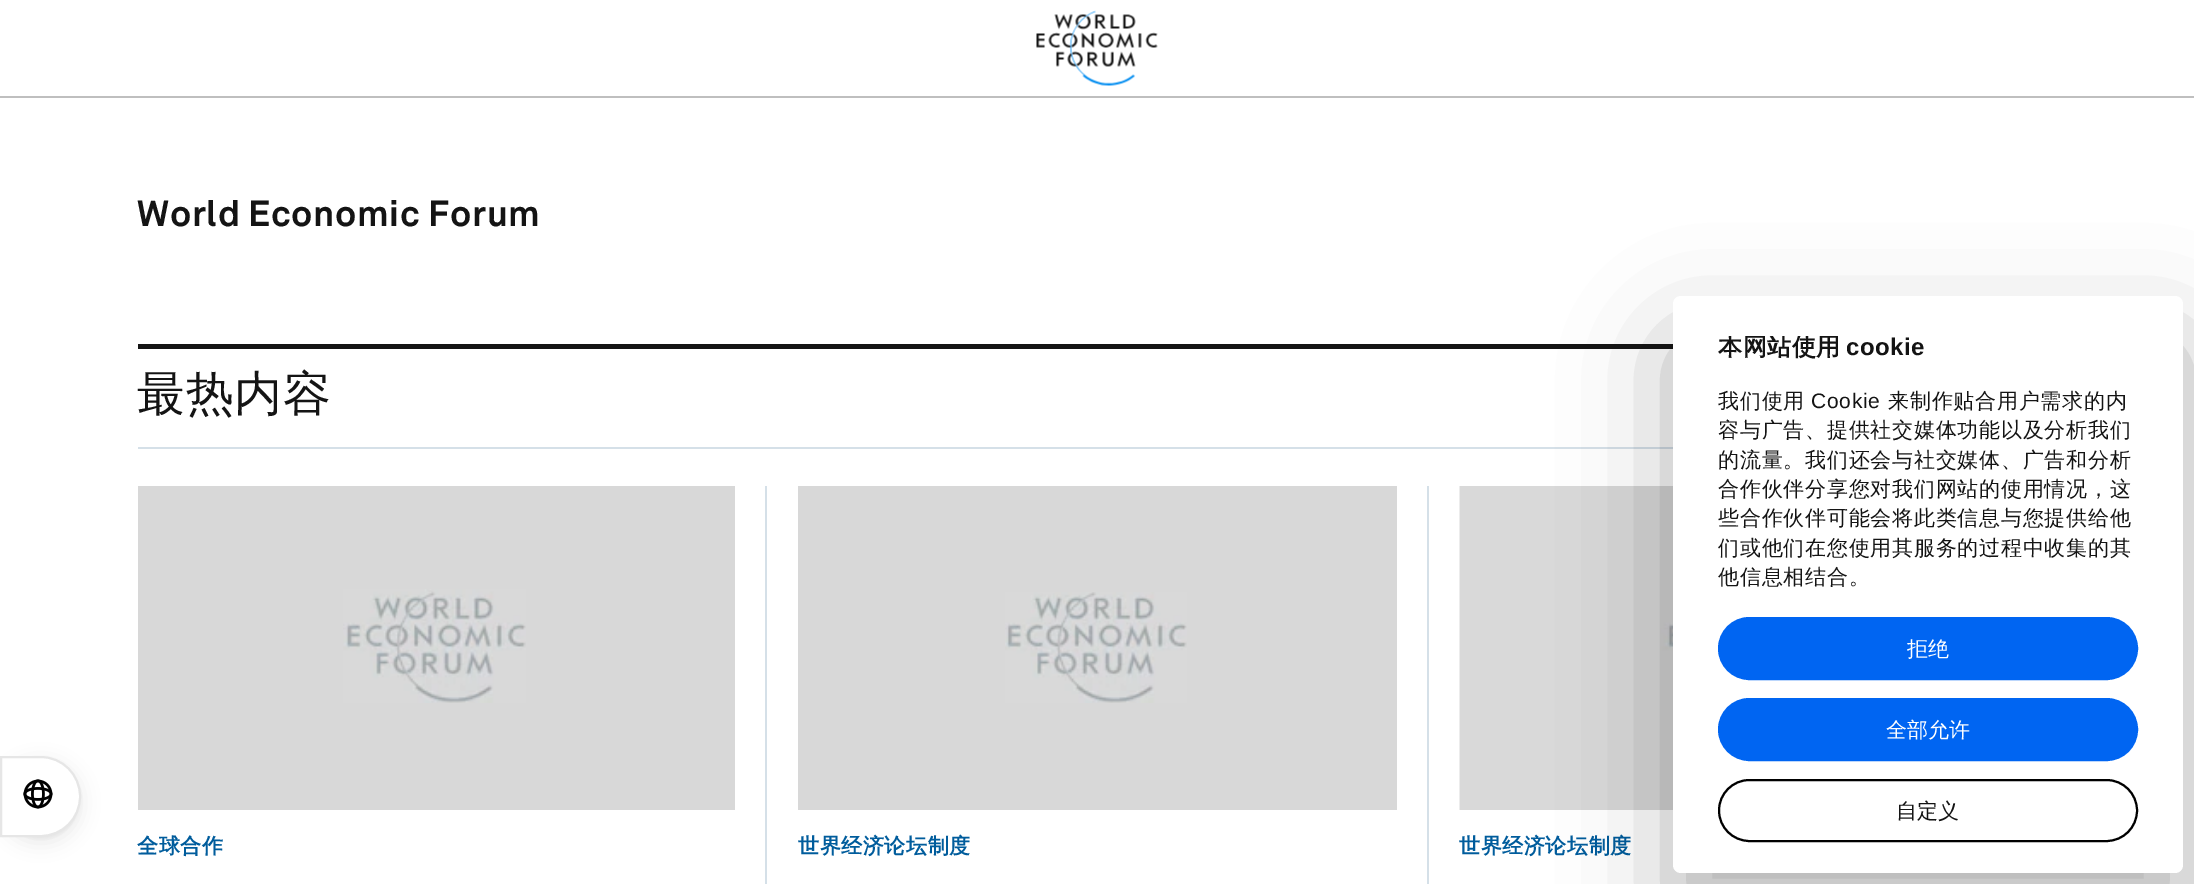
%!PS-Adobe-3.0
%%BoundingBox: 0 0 2194 884
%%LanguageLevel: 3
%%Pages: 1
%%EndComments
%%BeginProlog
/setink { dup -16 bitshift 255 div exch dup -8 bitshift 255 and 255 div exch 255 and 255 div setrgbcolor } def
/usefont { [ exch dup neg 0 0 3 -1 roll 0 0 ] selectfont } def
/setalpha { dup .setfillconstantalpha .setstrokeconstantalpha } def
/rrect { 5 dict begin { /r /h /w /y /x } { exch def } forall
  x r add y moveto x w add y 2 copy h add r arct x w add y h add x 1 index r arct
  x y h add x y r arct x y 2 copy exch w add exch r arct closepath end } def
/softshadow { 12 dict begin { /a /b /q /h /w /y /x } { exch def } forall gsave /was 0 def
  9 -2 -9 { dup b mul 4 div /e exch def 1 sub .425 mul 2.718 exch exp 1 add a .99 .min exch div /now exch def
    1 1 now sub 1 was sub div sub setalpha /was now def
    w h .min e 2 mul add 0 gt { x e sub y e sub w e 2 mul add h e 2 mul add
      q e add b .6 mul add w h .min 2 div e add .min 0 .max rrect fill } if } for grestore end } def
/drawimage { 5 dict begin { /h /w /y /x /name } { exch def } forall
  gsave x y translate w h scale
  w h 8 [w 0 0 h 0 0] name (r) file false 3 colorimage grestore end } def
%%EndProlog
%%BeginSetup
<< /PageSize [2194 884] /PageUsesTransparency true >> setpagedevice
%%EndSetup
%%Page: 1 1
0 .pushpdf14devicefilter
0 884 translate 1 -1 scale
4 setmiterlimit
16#FFFFFF setink
0 0 2194 884 rectfill
16#BFBFBF setink
0 96 2194 2 rectfill
(img1.raw) 1036 10 122 76 drawimage
16#000000 setink
0 758 81 81 40.5 1.5 0.04 softshadow
0 762 81 81 40.5 9 0.08 softshadow
16#FFFFFF setink
1 757 moveto 40.5 757 lineto 62.5 757 80 774.5 80 796.5 curveto 80 818.5 62.5 836 40.5 836 curveto 1 836 lineto closepath gsave fill grestore
16#E6E6E6 setink
2 setlinewidth
stroke
(img2.raw) 23 779 30 30 drawimage
/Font-Bold 36 usefont
16#141414 setink
137 226 moveto -1 0 32 0.6 0 (World Economic Forum) awidthshow
138 344 1535 5 rectfill
16#D5E0E8 setink
138 447 1535 2 rectfill
/WenQuanYiZenHei-Medium 48 usefont
16#141414 setink
137 410 moveto 0.6 0 (最热内容) ashow
16#D8D8D8 setink
138 486 597 324 rectfill
(img3.raw) 343 589 183 114 drawimage
/WenQuanYiZenHei-Bold 21 usefont
16#005C9C setink
137 853 moveto 0.6 0 (全球合作) ashow
16#D5E0E8 setink
765 486 2 398 rectfill
16#D8D8D8 setink
798 486 599 324 rectfill
(img4.raw) 1005 592 182 111 drawimage
16#005C9C setink
798 853 moveto 0.6 0 (世界经济论坛制度) ashow
16#D5E0E8 setink
1427 486 2 398 rectfill
(img5.raw) 1459 486 214 324 drawimage
16#005C9C setink
1459 853 moveto 0.6 0 (世界经济论坛制度) ashow
16#000000 setink
1673 341 510 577 8 52.5 0.3 softshadow
16#FFFFFF setink
1673 296 510 577 8 rrect fill
gsave
1718 336 420 281 rectclip
/WenQuanYiZenHei-Bold 24 usefont
16#141414 setink
1718 355 moveto 0.5 0 (本网站使用) ashow
grestore
/LiberationSans-Bold 24 usefont
16#141414 setink
1846 355 moveto 0.5 0 (cookie) ashow
/WenQuanYiZenHei-Medium 21 usefont
1718 408 moveto 0.75 0 (我们使用) ashow
/LiberationSans-Regular 21 usefont
1811 408 moveto 0.75 0 (Cookie) ashow
/WenQuanYiZenHei-Medium 21 usefont
1888 408 moveto 0.75 0 (来制作贴合用户需求的内) ashow
1718 437 moveto 0.75 0 (容与广告、提供社交媒体功能以及分析我们) ashow
1718 467 moveto 0.75 0 (的流量。我们还会与社交媒体、广告和分析) ashow
1718 496 moveto 0.75 0 (合作伙伴分享您对我们网站的使用情况，这) ashow
1718 525 moveto 0.75 0 (些合作伙伴可能会将此类信息与您提供给他) ashow
1718 555 moveto 0.75 0 (们或他们在您使用其服务的过程中收集的其) ashow
1718 584 moveto 0.75 0 (他信息相结合。) ashow
16#0065F2 setink
1719 618 418 61 30.5 rrect gsave fill grestore
stroke
16#FFFFFF setink
1907 656 moveto (拒绝) show
16#0065F2 setink
1719 699 418 61 30.5 rrect gsave fill grestore
stroke
16#FFFFFF setink
1886 737 moveto (全部允许) show
16#000000 setink
1719 780 418 61 30.5 rrect stroke
16#141414 setink
1896 818 moveto (自定义) show
.poppdf14devicefilter showpage
%%EOF
